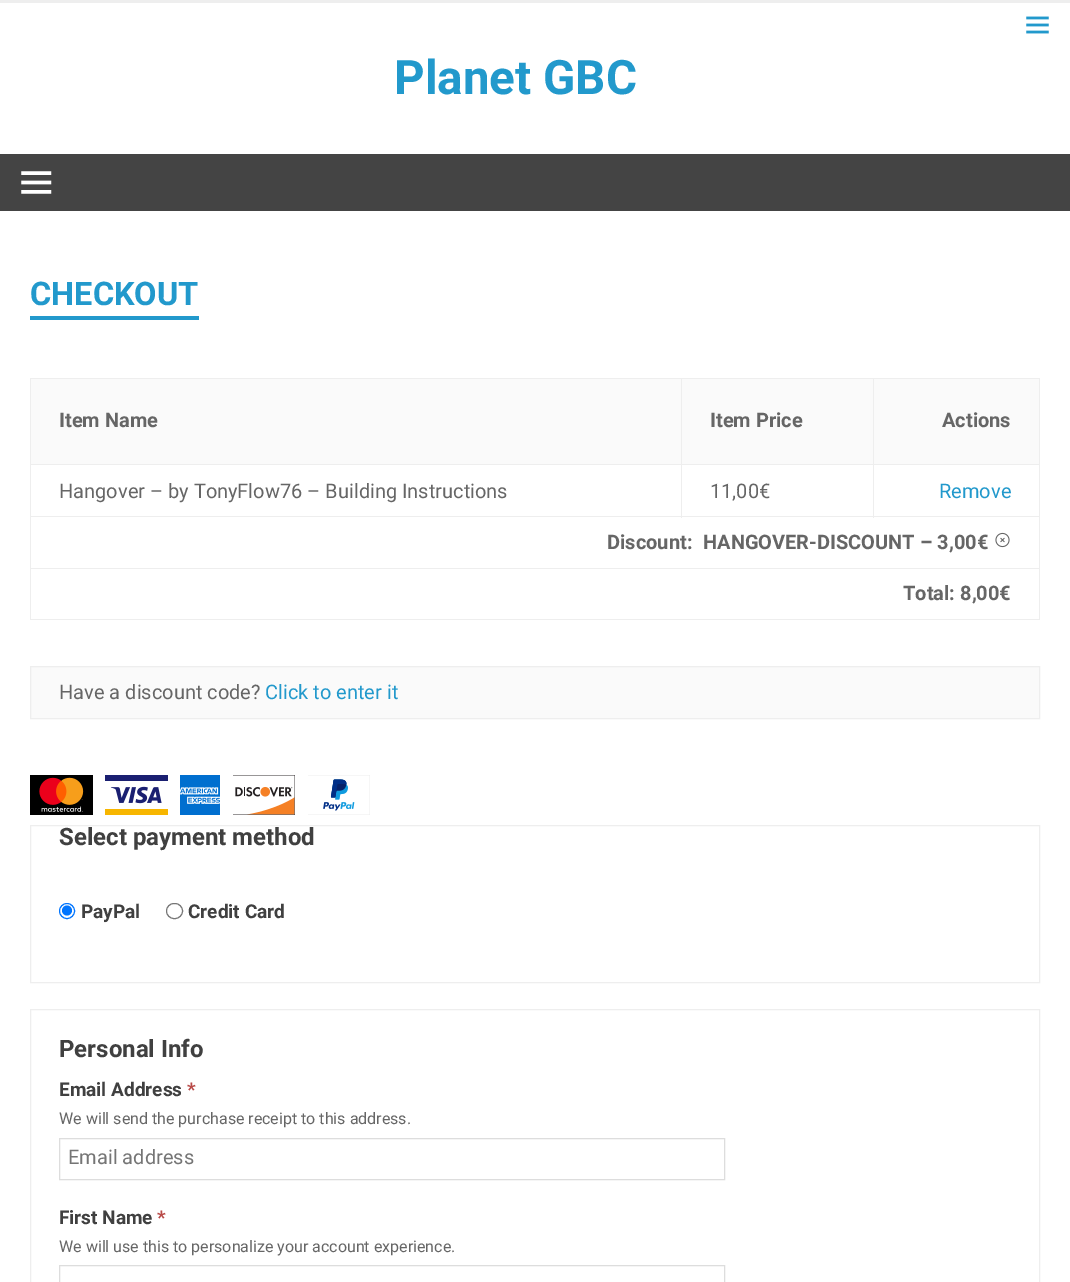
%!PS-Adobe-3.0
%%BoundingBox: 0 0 1070 1282
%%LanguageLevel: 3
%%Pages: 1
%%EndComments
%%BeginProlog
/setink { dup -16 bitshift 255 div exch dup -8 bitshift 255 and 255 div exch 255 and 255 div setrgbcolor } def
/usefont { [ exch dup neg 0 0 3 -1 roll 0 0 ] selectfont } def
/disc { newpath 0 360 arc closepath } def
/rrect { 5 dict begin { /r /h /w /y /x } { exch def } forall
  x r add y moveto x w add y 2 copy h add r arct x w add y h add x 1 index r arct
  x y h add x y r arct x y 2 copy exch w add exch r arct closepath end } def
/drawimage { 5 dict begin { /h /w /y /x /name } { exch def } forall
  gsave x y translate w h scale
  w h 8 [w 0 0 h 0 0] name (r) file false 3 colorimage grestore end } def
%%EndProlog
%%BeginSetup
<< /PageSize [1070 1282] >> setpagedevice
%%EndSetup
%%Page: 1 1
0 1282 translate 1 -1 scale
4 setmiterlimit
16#FFFFFF setink
0 0 1070 1282 rectfill
16#EEEEEE setink
0 0 1070 3 rectfill
(img1.raw) 1026 16 23 18 drawimage
/Roboto-Bold 47.5 usefont
16#2299CC setink
394 94 moveto (Planet GBC) show
16#444444 setink
0 154 1070 57 rectfill
(img2.raw) 21 171 31 23 drawimage
/Roboto-Bold 32.5 usefont
16#2299CC setink
30 305 moveto (CHECKOUT) show
[
    [30 316 169 4 16#2299CC]
    [31 379 650 85 16#FAFAFA]
    [873 378 167 1 16#EEEEEE]
    [873 464 167 1 16#EEEEEE]
    [30 516 1010 1 16#EEEEEE]
    [873 464 1 54 16#EEEEEE]
    [681 464 193 1 16#EEEEEE]
    [873 378 1 87 16#EEEEEE]
    [681 378 193 1 16#EEEEEE]
    [681 464 1 54 16#EEEEEE]
    [30 464 653 1 16#EEEEEE]
    [681 378 1 87 16#EEEEEE]
    [30 378 653 1 16#EEEEEE]
    [30 568 1010 1 16#EEEEEE]
    [1039 568 1 52 16#EEEEEE]
    [30 619 1010 1 16#EEEEEE]
    [30 568 1 52 16#EEEEEE]
    [30 516 1 53 16#EEEEEE]
    [30 464 1 54 16#EEEEEE]
    [30 378 1 87 16#EEEEEE]
] { aload pop setink rectfill } forall
/Roboto-Bold 20 usefont
16#666666 setink
59 427 moveto (Item Name) show
16#FAFAFA setink
682 379 191 85 rectfill
16#666666 setink
710 427 moveto (Item Price) show
[
    [874 379 165 85 16#FAFAFA]
    [1039 516 1 53 16#EEEEEE]
    [1039 464 1 54 16#EEEEEE]
    [1039 378 1 87 16#EEEEEE]
] { aload pop setink rectfill } forall
16#666666 setink
942 427 moveto (Actions) show
/Roboto-Regular 20 usefont
59 498 moveto (Hangover – by TonyFlow76 – Building Instructions) show
710 498 moveto (11,00€) show
16#2299CC setink
939 498 moveto (Remove) show
/Roboto-Bold 20 usefont
16#666666 setink
607 549 moveto (Discount:) show
703 549 moveto (HANGOVER-DISCOUNT – 3,00€) show
(img3.raw) 995 532 15 16 drawimage
903 600 moveto (Total: 8,00€) show
16#FAFAFA setink
30.5 666.5 moveto 1039.5 666.5 lineto 1039.5 718.5 lineto 30.5 718.5 lineto closepath gsave fill grestore
16#EEEEEE setink
stroke
/Roboto-Regular 20 usefont
16#666666 setink
59 699 moveto (Have a discount code?) show
16#2299CC setink
265 699 moveto (Click to enter it) show
(img4.raw) 30 775 63 40 drawimage
(img5.raw) 105 775 63 40 drawimage
(img6.raw) 180 775 40 40 drawimage
(img7.raw) 233 775 62 40 drawimage
(img8.raw) 308 775 62 40 drawimage
16#EEEEEE setink
30.5 825.5 1009 157 rectstroke
/Roboto-Bold 24 usefont
16#404040 setink
59 845 moveto (Select payment method) show
16#0075FF setink
67 911 7.5 disc stroke
67 910.5 5 disc fill
/Roboto-Bold 19 usefont
16#404040 setink
81 918 moveto (PayPal) show
16#767676 setink
166.5 903.5 16 15 7.5 rrect stroke
16#404040 setink
188 918 moveto (Credit Card) show
16#EEEEEE setink
30.5 1009.5 1009 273 rectstroke
/Roboto-Bold 24 usefont
16#404040 setink
59 1057 moveto (Personal Info) show
/Roboto-Bold 19 usefont
59 1096 moveto (Email Address) show
16#B94A48 setink
187 1096 moveto (*) show
/Roboto-Regular 16 usefont
16#666666 setink
59 1124 moveto (We will send the purchase receipt to this address.) show
16#DDDDDD setink
59.5 1138.5 665 41 rectstroke
/Roboto-Regular 20 usefont
16#757575 setink
68 1164 moveto (Email address) show
/Roboto-Bold 19 usefont
16#404040 setink
59 1224 moveto (First Name) show
16#B94A48 setink
157 1224 moveto (*) show
/Roboto-Regular 16 usefont
16#666666 setink
59 1252 moveto (We will use this to personalize your account experience.) show
16#DDDDDD setink
59.5 1265.5 665 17 rectstroke
showpage
%%EOF
